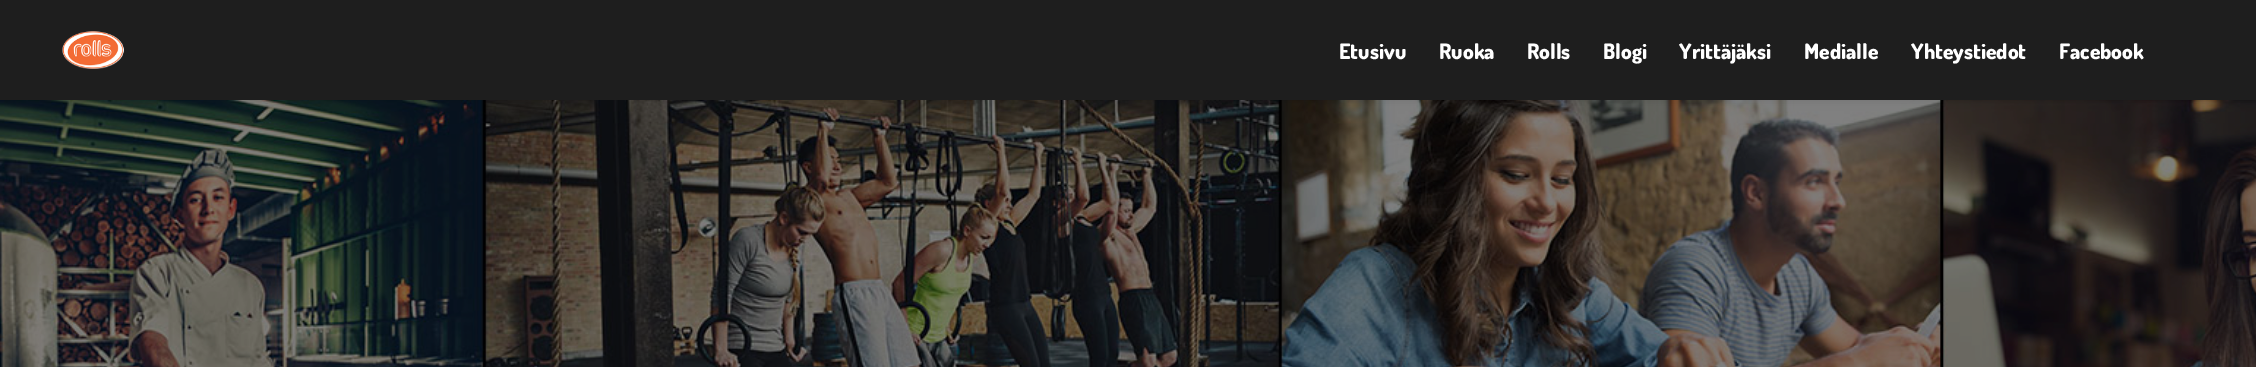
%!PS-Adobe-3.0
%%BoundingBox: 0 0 2256 367
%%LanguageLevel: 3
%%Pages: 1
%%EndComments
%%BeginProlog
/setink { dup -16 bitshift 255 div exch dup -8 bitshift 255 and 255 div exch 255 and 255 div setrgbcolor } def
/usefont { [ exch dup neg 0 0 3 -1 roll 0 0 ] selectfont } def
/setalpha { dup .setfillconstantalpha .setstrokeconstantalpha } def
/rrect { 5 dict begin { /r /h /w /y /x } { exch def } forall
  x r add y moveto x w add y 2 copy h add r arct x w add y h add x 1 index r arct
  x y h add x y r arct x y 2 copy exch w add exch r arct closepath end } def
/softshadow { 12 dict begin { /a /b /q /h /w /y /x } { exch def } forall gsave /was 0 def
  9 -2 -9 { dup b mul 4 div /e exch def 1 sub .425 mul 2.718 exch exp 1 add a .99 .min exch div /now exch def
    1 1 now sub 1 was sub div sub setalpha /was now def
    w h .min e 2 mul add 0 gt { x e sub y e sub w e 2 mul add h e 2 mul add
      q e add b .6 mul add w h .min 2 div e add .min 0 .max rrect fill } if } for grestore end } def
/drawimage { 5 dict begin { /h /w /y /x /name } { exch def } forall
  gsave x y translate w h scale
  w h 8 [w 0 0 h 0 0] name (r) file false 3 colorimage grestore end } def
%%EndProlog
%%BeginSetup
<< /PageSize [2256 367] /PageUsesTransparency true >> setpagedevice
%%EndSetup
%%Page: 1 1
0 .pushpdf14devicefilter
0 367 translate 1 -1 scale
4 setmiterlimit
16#FFFFFF setink
0 0 2256 367 rectfill
(img2.raw) 0 100 2256 267 drawimage
16#000000 setink
0 0 2256 100 0 5 0.12 softshadow
16#1E1E1E setink
0 0 2256 100 rectfill
(img1.raw) 62 31 62 38 drawimage
/Dosis-ExtraBold 21.25 usefont
16#FFFFFF setink
[
    [(Etusivu) 1339 59]
    [(Ruoka) 1439 59]
    [(Rolls) 1527 59]
    [(Blogi) 1603 59]
    [(Yrittäjäksi) 1679 59]
    [(Medialle) 1804 59]
    [(Yhteystiedot) 1911 59]
    [(Facebook) 2059 59]
] { aload pop moveto show } forall
.poppdf14devicefilter showpage
%%EOF
